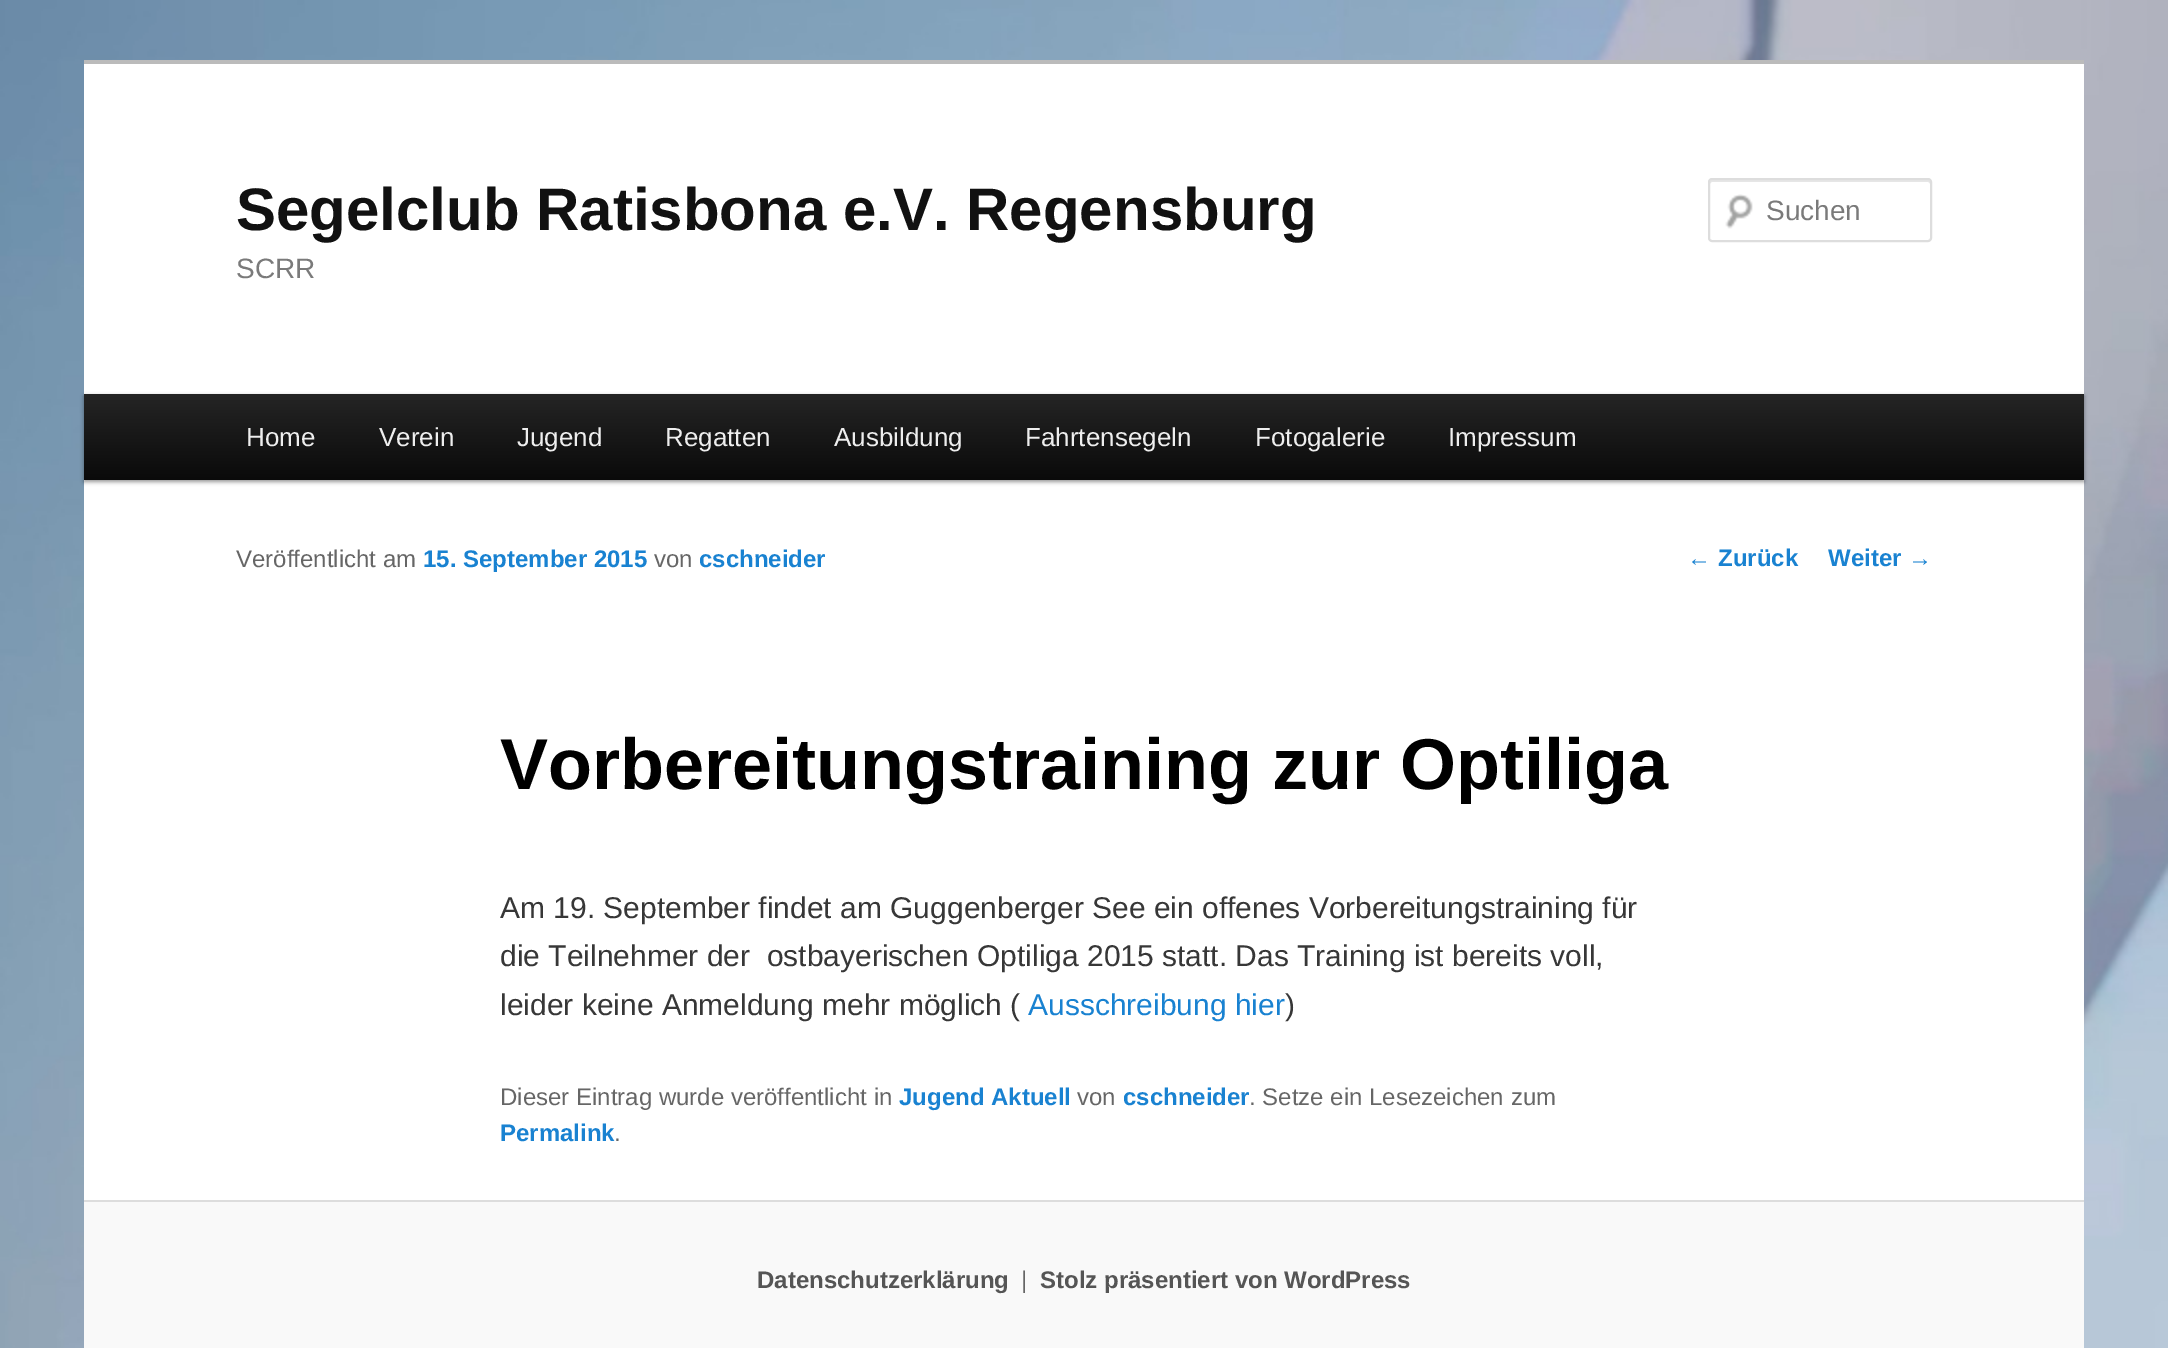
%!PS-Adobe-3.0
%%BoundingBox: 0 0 2168 1348
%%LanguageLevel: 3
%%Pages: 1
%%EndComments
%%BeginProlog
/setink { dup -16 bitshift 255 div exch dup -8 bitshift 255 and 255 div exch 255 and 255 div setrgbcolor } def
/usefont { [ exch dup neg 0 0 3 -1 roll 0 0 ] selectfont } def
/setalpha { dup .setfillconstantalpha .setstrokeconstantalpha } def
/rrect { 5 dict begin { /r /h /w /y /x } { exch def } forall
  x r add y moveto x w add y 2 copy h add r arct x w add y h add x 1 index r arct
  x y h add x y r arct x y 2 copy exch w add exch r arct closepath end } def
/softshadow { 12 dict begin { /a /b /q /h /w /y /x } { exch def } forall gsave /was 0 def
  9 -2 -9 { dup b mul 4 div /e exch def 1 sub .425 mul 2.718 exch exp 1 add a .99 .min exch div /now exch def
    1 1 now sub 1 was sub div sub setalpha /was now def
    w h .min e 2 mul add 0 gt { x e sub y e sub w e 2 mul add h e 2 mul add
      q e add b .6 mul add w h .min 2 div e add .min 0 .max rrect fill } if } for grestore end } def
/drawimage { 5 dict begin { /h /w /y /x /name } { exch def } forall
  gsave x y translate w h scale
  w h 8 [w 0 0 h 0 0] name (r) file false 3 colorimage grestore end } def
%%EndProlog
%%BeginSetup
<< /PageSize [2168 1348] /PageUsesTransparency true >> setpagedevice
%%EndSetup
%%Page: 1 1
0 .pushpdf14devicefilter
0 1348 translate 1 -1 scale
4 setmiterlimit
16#FFFFFF setink
0 0 2168 1348 rectfill
(img1.raw) 0 0 2168 1348 drawimage
84 64 2000 1136 rectfill
16#BBBBBB setink
84 60 2000 4 rectfill
/LiberationSans-Bold 60 usefont
16#111111 setink
236 230 moveto (Segelclub Ratisbona e.V. Regensburg) show
/LiberationSans-Regular 28 usefont
16#7A7A7A setink
236 278 moveto (SCRR) show
(img2.raw) 1725 194 28 35 drawimage
16#E6E6E6 setink
1712 182 moveto 1928 182 lineto 1929 182 1930 183 1930 184 curveto 1930 182 lineto 1930 181 1929 180 1928 180 curveto 1712 180 lineto 1711 180 1710 181 1710 182 curveto 1710 184 lineto 1710 183 1711 182 1712 182 curveto closepath fill
16#DDDDDD setink
2 setlinewidth
1709 179 222 62 3 rrect stroke
16#7A7A7A setink
1766 220 moveto (Suchen) show
16#000000 setink
84 396 2000 86 0 2 0.4 softshadow
gsave 84 394 moveto 2084 394 lineto 2084 480 lineto 84 480 lineto closepath clip newpath
<< /ShadingType 2 /ColorSpace /DeviceRGB /Coords [1084 394 1084 480] /Extend [true true] /Function << /FunctionType 2 /Domain [0 1] /C0 [0.145 0.145 0.145] /C1 [0.039 0.039 0.039] /N 1 >> >> shfill grestore
/LiberationSans-Regular 26 usefont
16#EEEEEE setink
[
    [(Home) 246 446]
    [(Verein) 379 446]
    [(Jugend) 517 446]
    [(Regatten) 665 446]
    [(Ausbildung) 834 446]
    [(Fahrtensegeln) 1025 446]
    [(Fotogalerie) 1255 446]
    [(Impressum) 1448 446]
] { aload pop moveto show } forall
/LiberationSans-Regular 24 usefont
16#666666 setink
236 567 moveto (Veröffentlicht am) show
/LiberationSans-Bold 24 usefont
16#1982D1 setink
423 567 moveto (15. September 2015) show
/LiberationSans-Regular 24 usefont
16#666666 setink
654 567 moveto (von) show
/LiberationSans-Bold 24 usefont
16#1982D1 setink
699 567 moveto (cschneider) show
/LiberationSans-Bold 72 usefont
16#000000 setink
500 789 moveto (Vorbereitungstraining zur Optiliga) show
/LiberationSans-Regular 30 usefont
16#373737 setink
[
    [(Am 19. September findet am Guggenberger See ein offenes Vorbereitungstraining für) 500 918]
    [(die Teilnehmer der  ostbayerischen Optiliga 2015 statt. Das Training ist bereits voll,) 500 966]
    [(leider keine Anmeldung mehr möglich \() 500 1015]
] { aload pop moveto show } forall
16#1982D1 setink
1028 1015 moveto (Ausschreibung hier) show
16#373737 setink
1285 1015 moveto (\)) show
/LiberationSans-Regular 24 usefont
16#666666 setink
500 1105 moveto (Dieser Eintrag wurde veröffentlicht in) show
/LiberationSans-Bold 24 usefont
16#1982D1 setink
899 1105 moveto (Jugend Aktuell) show
/LiberationSans-Regular 24 usefont
16#666666 setink
1077 1105 moveto (von) show
/LiberationSans-Bold 24 usefont
16#1982D1 setink
1123 1105 moveto (cschneider) show
/LiberationSans-Regular 24 usefont
16#666666 setink
1249 1105 moveto (. Setze ein Lesezeichen zum) show
/LiberationSans-Bold 24 usefont
16#1982D1 setink
500 1141 moveto (Permalink) show
/LiberationSans-Regular 24 usefont
16#666666 setink
614 1141 moveto (.) show
16#1982D1 setink
1687 566 moveto (←) show
/LiberationSans-Bold 24 usefont
1718 566 moveto (Zurück) show
1828 566 moveto (Weiter) show
/LiberationSans-Regular 24 usefont
1908 566 moveto (→) show
16#F9F9F9 setink
84 1202 2000 146 rectfill
16#DDDDDD setink
84 1200 2000 2 rectfill
/LiberationSans-Bold 24 usefont
16#555555 setink
757 1288 moveto (Datenschutzerklärung) show
/LiberationSans-Regular 24 usefont
16#666666 setink
1021 1288 moveto (|) show
/LiberationSans-Bold 24 usefont
16#555555 setink
1040 1288 moveto (Stolz präsentiert von WordPress) show
.poppdf14devicefilter showpage
%%EOF
